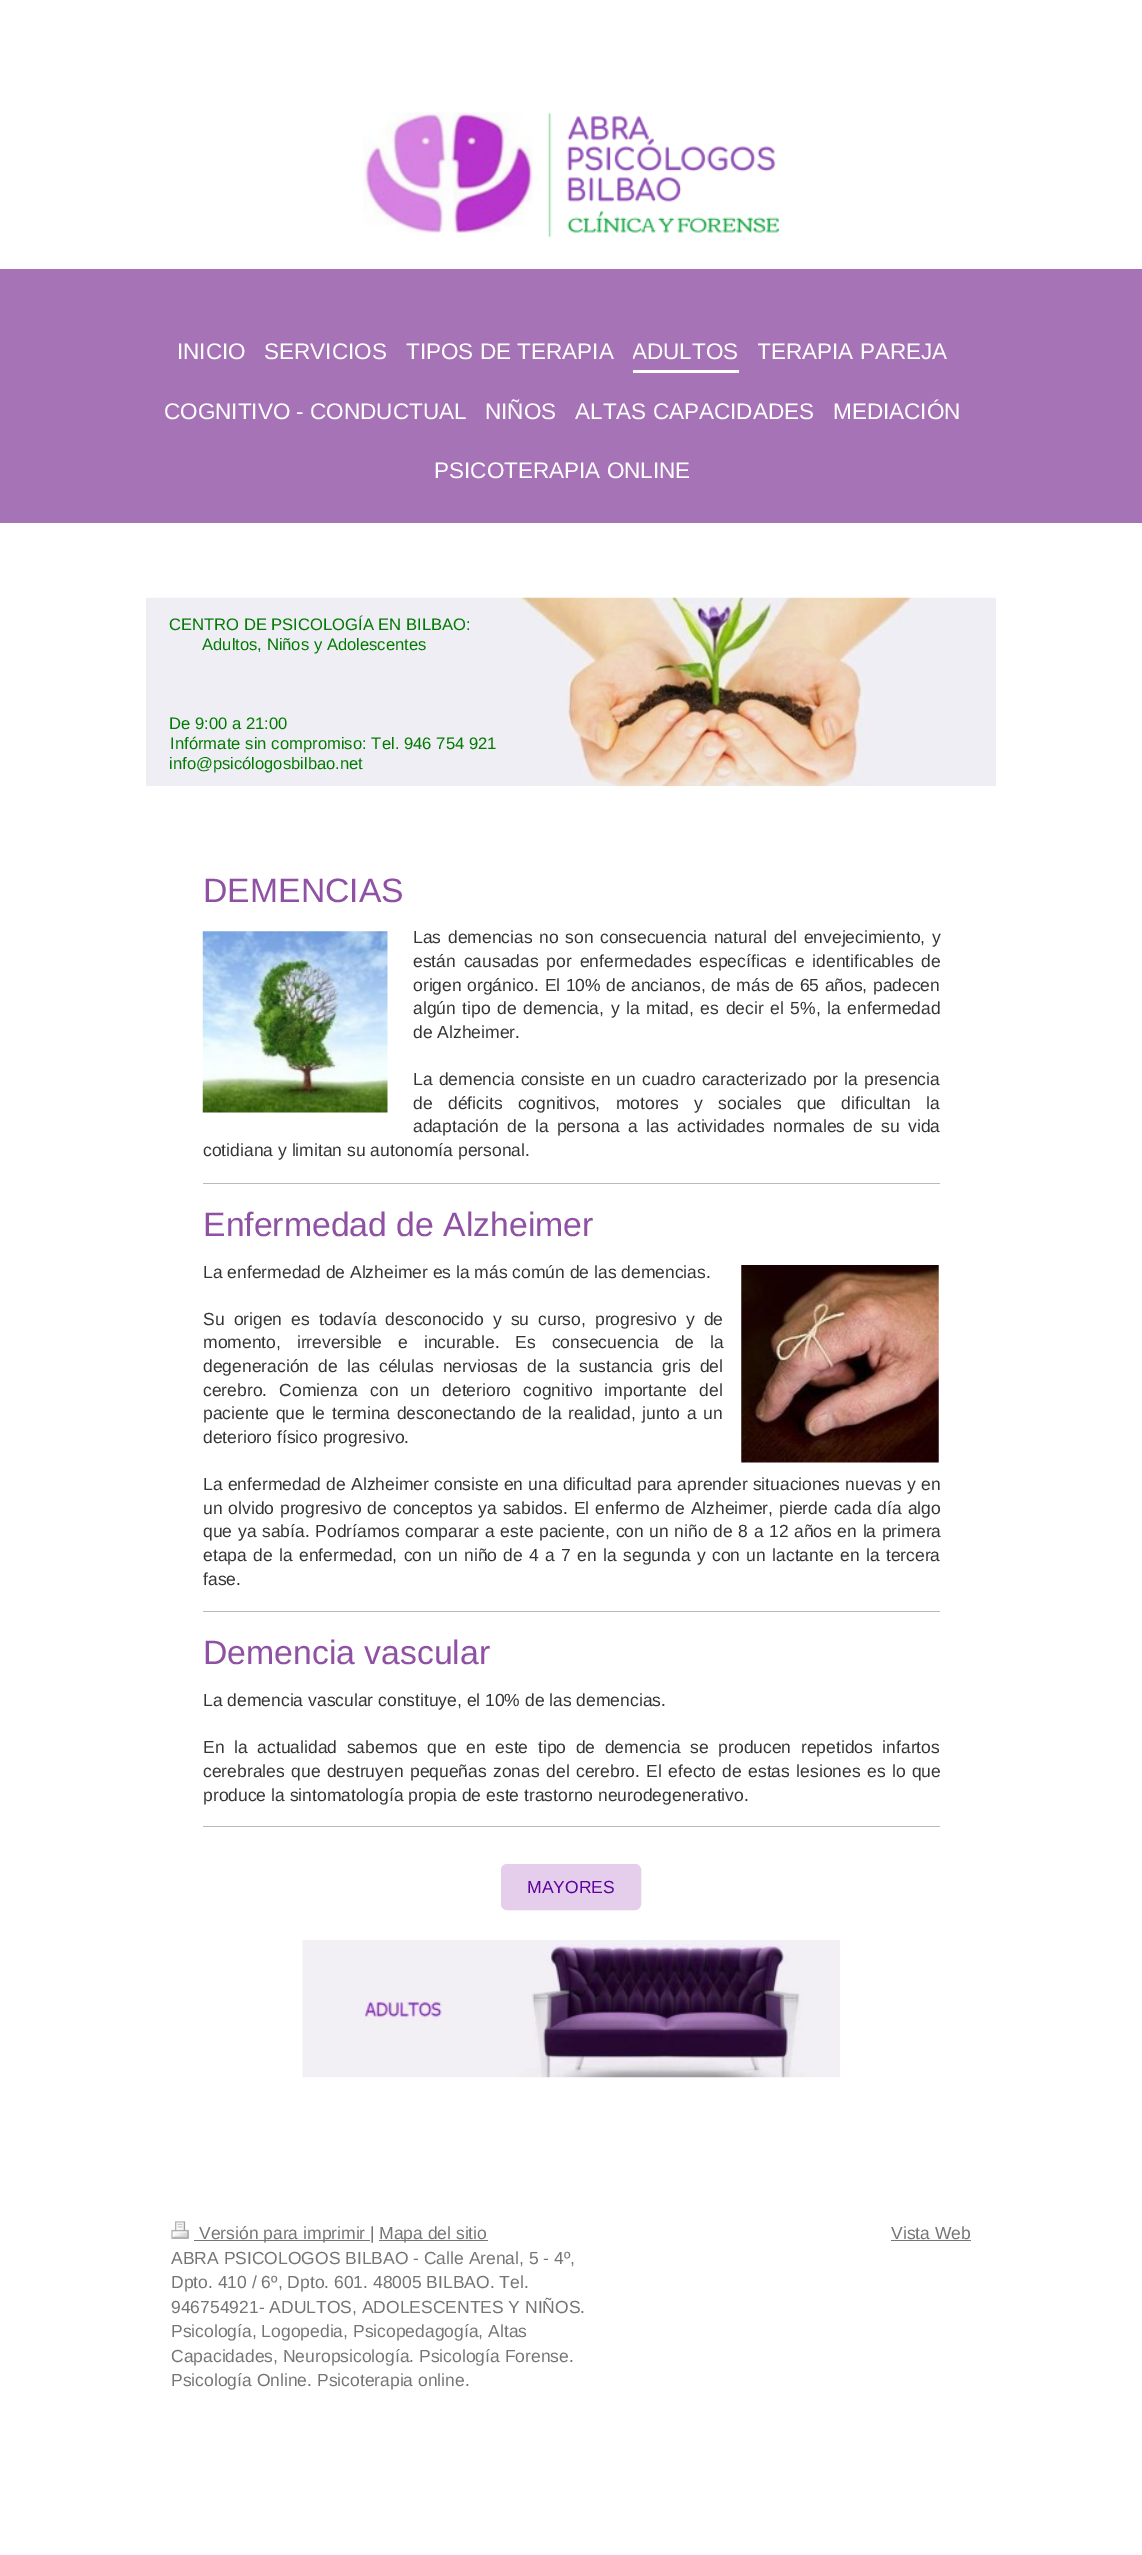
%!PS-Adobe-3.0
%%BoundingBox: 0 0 1142 2555
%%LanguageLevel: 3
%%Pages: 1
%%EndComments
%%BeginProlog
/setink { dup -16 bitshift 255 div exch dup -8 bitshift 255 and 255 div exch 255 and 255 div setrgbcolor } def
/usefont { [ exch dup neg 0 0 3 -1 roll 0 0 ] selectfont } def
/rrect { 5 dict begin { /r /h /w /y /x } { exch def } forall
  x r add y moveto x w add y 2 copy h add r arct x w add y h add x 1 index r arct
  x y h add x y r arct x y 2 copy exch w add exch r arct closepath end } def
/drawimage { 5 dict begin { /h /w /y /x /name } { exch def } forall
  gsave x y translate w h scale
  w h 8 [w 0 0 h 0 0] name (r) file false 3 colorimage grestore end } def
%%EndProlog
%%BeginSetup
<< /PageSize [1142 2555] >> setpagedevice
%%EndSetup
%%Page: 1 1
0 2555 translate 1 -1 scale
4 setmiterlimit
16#FFFFFF setink
0 0 1142 2555 rectfill
(img1.raw) 363 112 417 126 drawimage
16#A674B6 setink
0 269 1142 254 rectfill
/LiberationSans-Regular 22.5 usefont
16#FFFFFF setink
[
    [(INICIO) 177 359]
    [(SERVICIOS) 264 359]
    [(TIPOS DE TERAPIA) 406 359]
] { aload pop moveto show } forall
633 370 106 3 rectfill
gsave
633 319 106 51 rectclip
632 359 moveto (ADULTOS) show
grestore
gsave
758 319 190 51 rectclip
757 359 moveto (TERAPIA PAREJA) show
grestore
[
    [(COGNITIVO - CONDUCTUAL) 164 419]
    [(NIÑOS) 485 419]
    [(ALTAS CAPACIDADES) 575 419]
    [(MEDIACIÓN) 833 419]
    [(PSICOTERAPIA ONLINE) 434 478]
] { aload pop moveto show } forall
16#EEEEEE setink
146 598 1 188 rectfill
(img2.raw) 147 597 849 190 drawimage
/LiberationSans-Regular 16.6 usefont
16#037A04 setink
[
    [(CENTRO DE PSICOLOGÍA EN BILBAO:) 169 630]
    [(Adultos, Niños y Adolescentes) 202 650]
    [(De 9:00 a 21:00) 169 729]
] { aload pop moveto show } forall
170 749 moveto 0.05 0 (Infórmate sin compromiso: Tel. 946 754 921) ashow
169 769 moveto (info@psicólogosbilbao.net) show
/LiberationSans-Regular 33.75 usefont
16#8F51A3 setink
203 902 moveto (DEMENCIAS) show
/LiberationSans-Regular 17.5 usefont
16#353535 setink
413 943 moveto 1.75 0 32 (Las demencias no son consecuencia natural del envejecimiento, y) widthshow
413 967 moveto 3 0 32 (están causadas por enfermedades específicas e identificables de) widthshow
413 991 moveto 0.6 0 32 (origen orgánico. El 10% de ancianos, de más de 65 años, padecen) widthshow
413 1014 moveto 1.75 0 32 (algún tipo de demencia, y la mitad, es decir el 5%, la enfermedad) widthshow
413 1038 moveto (de Alzheimer.) show
413 1085 moveto 1.25 0 32 (La demencia consiste en un cuadro caracterizado por la presencia) widthshow
413 1109 moveto 10.5 0 32 (de déficits cognitivos, motores y sociales que dificultan la) widthshow
413 1132 moveto 3.5 0 32 (adaptación de la persona a las actividades normales de su vida) widthshow
203 1156 moveto (cotidiana y limitan su autonomía personal.) show
(img3.raw) 202 931 186 182 drawimage
16#BABABA setink
203 1183 737 1 rectfill
/LiberationSans-Regular 33.75 usefont
16#8F51A3 setink
203 1236 moveto (Enfermedad de Alzheimer) show
/LiberationSans-Regular 17.5 usefont
16#353535 setink
203 1278 moveto (La enfermedad de Alzheimer es la más común de las demencias.) show
203 1325 moveto 4.25 0 32 (Su origen es todavía desconocido y su curso, progresivo y de) widthshow
203 1348 moveto 11 0 32 (momento, irreversible e incurable. Es consecuencia de la) widthshow
203 1372 moveto 4.5 0 32 (degeneración de las células nerviosas de la sustancia gris del) widthshow
203 1396 moveto 7.25 0 32 (cerebro. Comienza con un deterioro cognitivo importante del) widthshow
203 1419 moveto 1.75 0 32 (paciente que le termina desconectando de la realidad, junto a un) widthshow
203 1443 moveto (deterioro físico progresivo.) show
203 1490 moveto 0.4 0 32 (La enfermedad de Alzheimer consiste en una dificultad para aprender situaciones nuevas y en) widthshow
203 1514 moveto 1 0 32 (un olvido progresivo de conceptos ya sabidos. El enfermo de Alzheimer, pierde cada día algo) widthshow
203 1537 moveto 0.75 0 32 (que ya sabía. Podríamos comparar a este paciente, con un niño de 8 a 12 años en la primera) widthshow
203 1561 moveto 1.5 0 32 (etapa de la enfermedad, con un niño de 4 a 7 en la segunda y con un lactante en la tercera) widthshow
203 1585 moveto (fase.) show
(img4.raw) 741 1265 198 198 drawimage
16#BABABA setink
203 1611 737 1 rectfill
/LiberationSans-Regular 33.75 usefont
16#8F51A3 setink
203 1664 moveto (Demencia vascular) show
/LiberationSans-Regular 17.5 usefont
16#353535 setink
203 1706 moveto (La demencia vascular constituye, el 10% de las demencias.) show
203 1753 moveto 4.75 0 32 (En la actualidad sabemos que en este tipo de demencia se producen repetidos infartos) widthshow
203 1777 moveto 1.5 0 32 (cerebrales que destruyen pequeñas zonas del cerebro. El efecto de estas lesiones es lo que) widthshow
203 1801 moveto (produce la sintomatología propia de este trastorno neurodegenerativo.) show
16#BABABA setink
203 1826 737 1 rectfill
16#E5CEEB setink
501.5 1864.5 139 45 5.5 rrect gsave fill grestore
stroke
16#5C039B setink
527 1893 moveto (MAYORES) show
(img5.raw) 302 1940 538 138 drawimage
(img6.raw) 171 2221 18 18 drawimage
16#757575 setink
194 2240 176 1 rectfill
199 2239 moveto (Versión para imprimir |) show
379 2240 109 1 rectfill
[
    [(Mapa del sitio) 379 2239]
    [(ABRA PSICOLOGOS BILBAO - Calle Arenal, 5 - 4º,) 171 2264]
    [(Dpto. 410 / 6º, Dpto. 601. 48005 BILBAO. Tel.) 171 2288]
    [(946754921- ADULTOS, ADOLESCENTES Y NIÑOS.) 171 2313]
    [(Psicología, Logopedia, Psicopedagogía, Altas) 171 2337]
    [(Capacidades, Neuropsicología. Psicología Forense.) 171 2362]
    [(Psicología Online. Psicoterapia online.) 171 2386]
    [(Vista Web) 891 2239]
] { aload pop moveto show } forall
891 2240 80 1 rectfill
showpage
%%EOF
